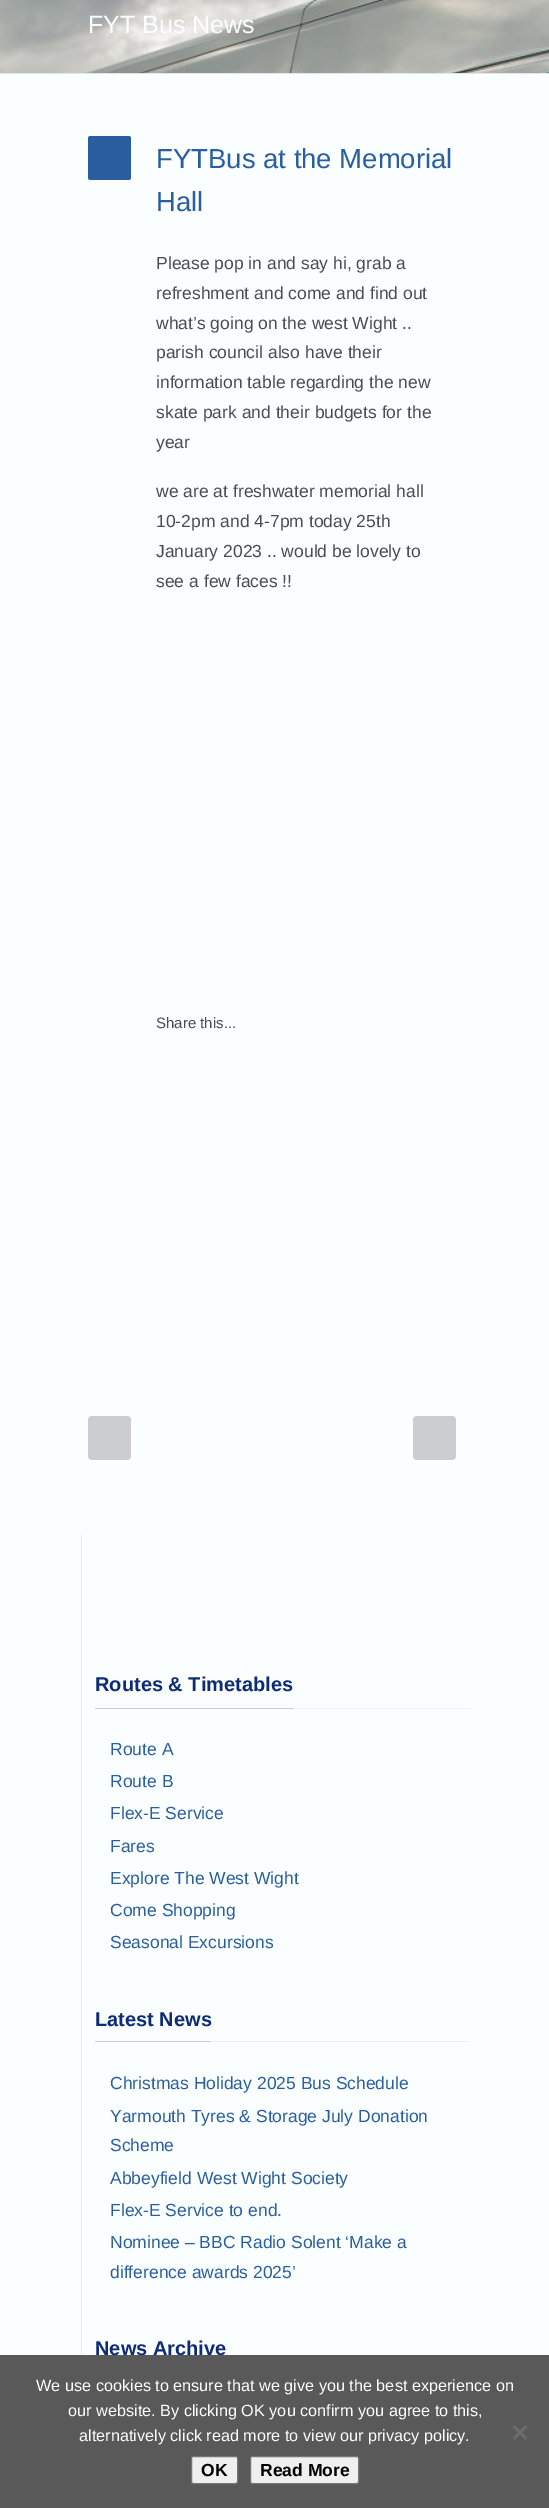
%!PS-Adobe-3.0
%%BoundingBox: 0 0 549 2508
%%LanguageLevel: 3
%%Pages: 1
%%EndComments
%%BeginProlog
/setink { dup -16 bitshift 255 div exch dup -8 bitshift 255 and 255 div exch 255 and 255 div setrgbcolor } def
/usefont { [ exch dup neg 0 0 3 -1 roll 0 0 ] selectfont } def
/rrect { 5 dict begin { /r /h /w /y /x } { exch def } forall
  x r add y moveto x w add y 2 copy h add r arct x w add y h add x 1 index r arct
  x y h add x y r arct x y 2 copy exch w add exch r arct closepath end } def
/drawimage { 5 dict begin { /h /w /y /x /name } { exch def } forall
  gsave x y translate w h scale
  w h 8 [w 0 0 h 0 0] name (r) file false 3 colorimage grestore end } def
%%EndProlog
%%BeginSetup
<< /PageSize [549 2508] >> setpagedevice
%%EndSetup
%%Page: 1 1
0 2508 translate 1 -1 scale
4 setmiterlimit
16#FBFEFF setink
0 0 549 2508 rectfill
(img1.raw) 0 0 549 73 drawimage
16#E2E4E5 setink
0 73 549 1 rectfill
/LiberationSans-Regular 25 usefont
16#FBFEFF setink
88 33 moveto (FYT Bus News) show
16#295EA0 setink
88 136 43 44 2.5 rrect fill
/LiberationSans-Regular 27.5 usefont
156 168 moveto (FYTBus at the Memorial) show
156 211 moveto (Hall) show
/LiberationSans-Regular 17.5 usefont
16#4A4C4D setink
[
    [(Please pop in and say hi, grab a) 156 269]
    [(refreshment and come and find out) 156 299]
    [(what’s going on the west Wight ..) 156 329]
    [(parish council also have their) 156 358]
    [(information table regarding the new) 156 388]
    [(skate park and their budgets for the) 156 418]
    [(year) 156 448]
    [(we are at freshwater memorial hall) 156 497]
    [(10-2pm and 4-7pm today 25th) 156 527]
    [(January 2023 .. would be lovely to) 156 557]
    [(see a few faces !!) 156 587]
] { aload pop moveto show } forall
/LiberationSans-Regular 15 usefont
156 1028 moveto (Share this...) show
16#CBCDCE setink
88 1416 43 44 4 rrect fill
413 1416 43 44 4 rrect fill
[
    [81 1535 1 820 16#DEEEEF]
    [293 1708 177 1 16#EEF1F1]
    [95 1708 198 1 16#CBCDCE]
] { aload pop setink rectfill } forall
/LiberationSans-Bold 20 usefont
16#0D2C75 setink
95 1691 moveto (Routes & Timetables) show
/LiberationSans-Regular 17.5 usefont
16#295EA0 setink
[
    [(Route A) 110 1755]
    [(Route B) 110 1787]
    [(Flex-E Service) 110 1819]
    [(Fares) 110 1852]
    [(Explore The West Wight) 110 1884]
    [(Come Shopping) 110 1916]
    [(Seasonal Excursions) 110 1948]
] { aload pop moveto show } forall
16#EEF1F1 setink
211 2041 259 1 rectfill
16#CBCDCE setink
95 2041 116 1 rectfill
/LiberationSans-Bold 20 usefont
16#0D2C75 setink
95 2026 moveto (Latest News) show
/LiberationSans-Regular 17.5 usefont
16#295EA0 setink
[
    [(Christmas Holiday 2025 Bus Schedule) 110 2089]
    [(Yarmouth Tyres & Storage July Donation) 110 2122]
    [(Scheme) 110 2151]
    [(Abbeyfield West Wight Society) 110 2184]
    [(Flex-E Service to end.) 110 2216]
    [(Nominee – BBC Radio Solent ‘Make a) 110 2248]
    [(difference awards 2025’) 110 2278]
] { aload pop moveto show } forall
/LiberationSans-Bold 20 usefont
16#0D2C75 setink
95 2355 moveto (News Archive) show
16#595959 setink
0 2355 549 153 rectfill
/LiberationSans-Regular 16.25 usefont
16#FBFEFF setink
[
    [(We use cookies to ensure that we give you the best experience on) 36 2391]
    [(our website. By clicking OK you confirm you agree to this,) 68 2416]
    [(alternatively click read more to view our privacy policy.) 79 2441]
] { aload pop moveto show } forall
16#6D6D6D setink
525.5 2425 moveto 527.5 2427 lineto 514.5 2440 lineto 512.5 2438 lineto closepath fill
512.5 2427 moveto 514.5 2425 lineto 527.5 2438 lineto 525.5 2440 lineto closepath fill
16#EFEFEF setink
191.5 2456.5 46 27 2 rrect gsave fill grestore
16#767676 setink
stroke
/LiberationSans-Bold 17.5 usefont
16#000000 setink
201 2476 moveto (OK) show
16#EFEFEF setink
250.5 2456.5 108 27 2 rrect gsave fill grestore
16#767676 setink
stroke
16#000000 setink
260 2476 moveto (Read More) show
showpage
%%EOF
